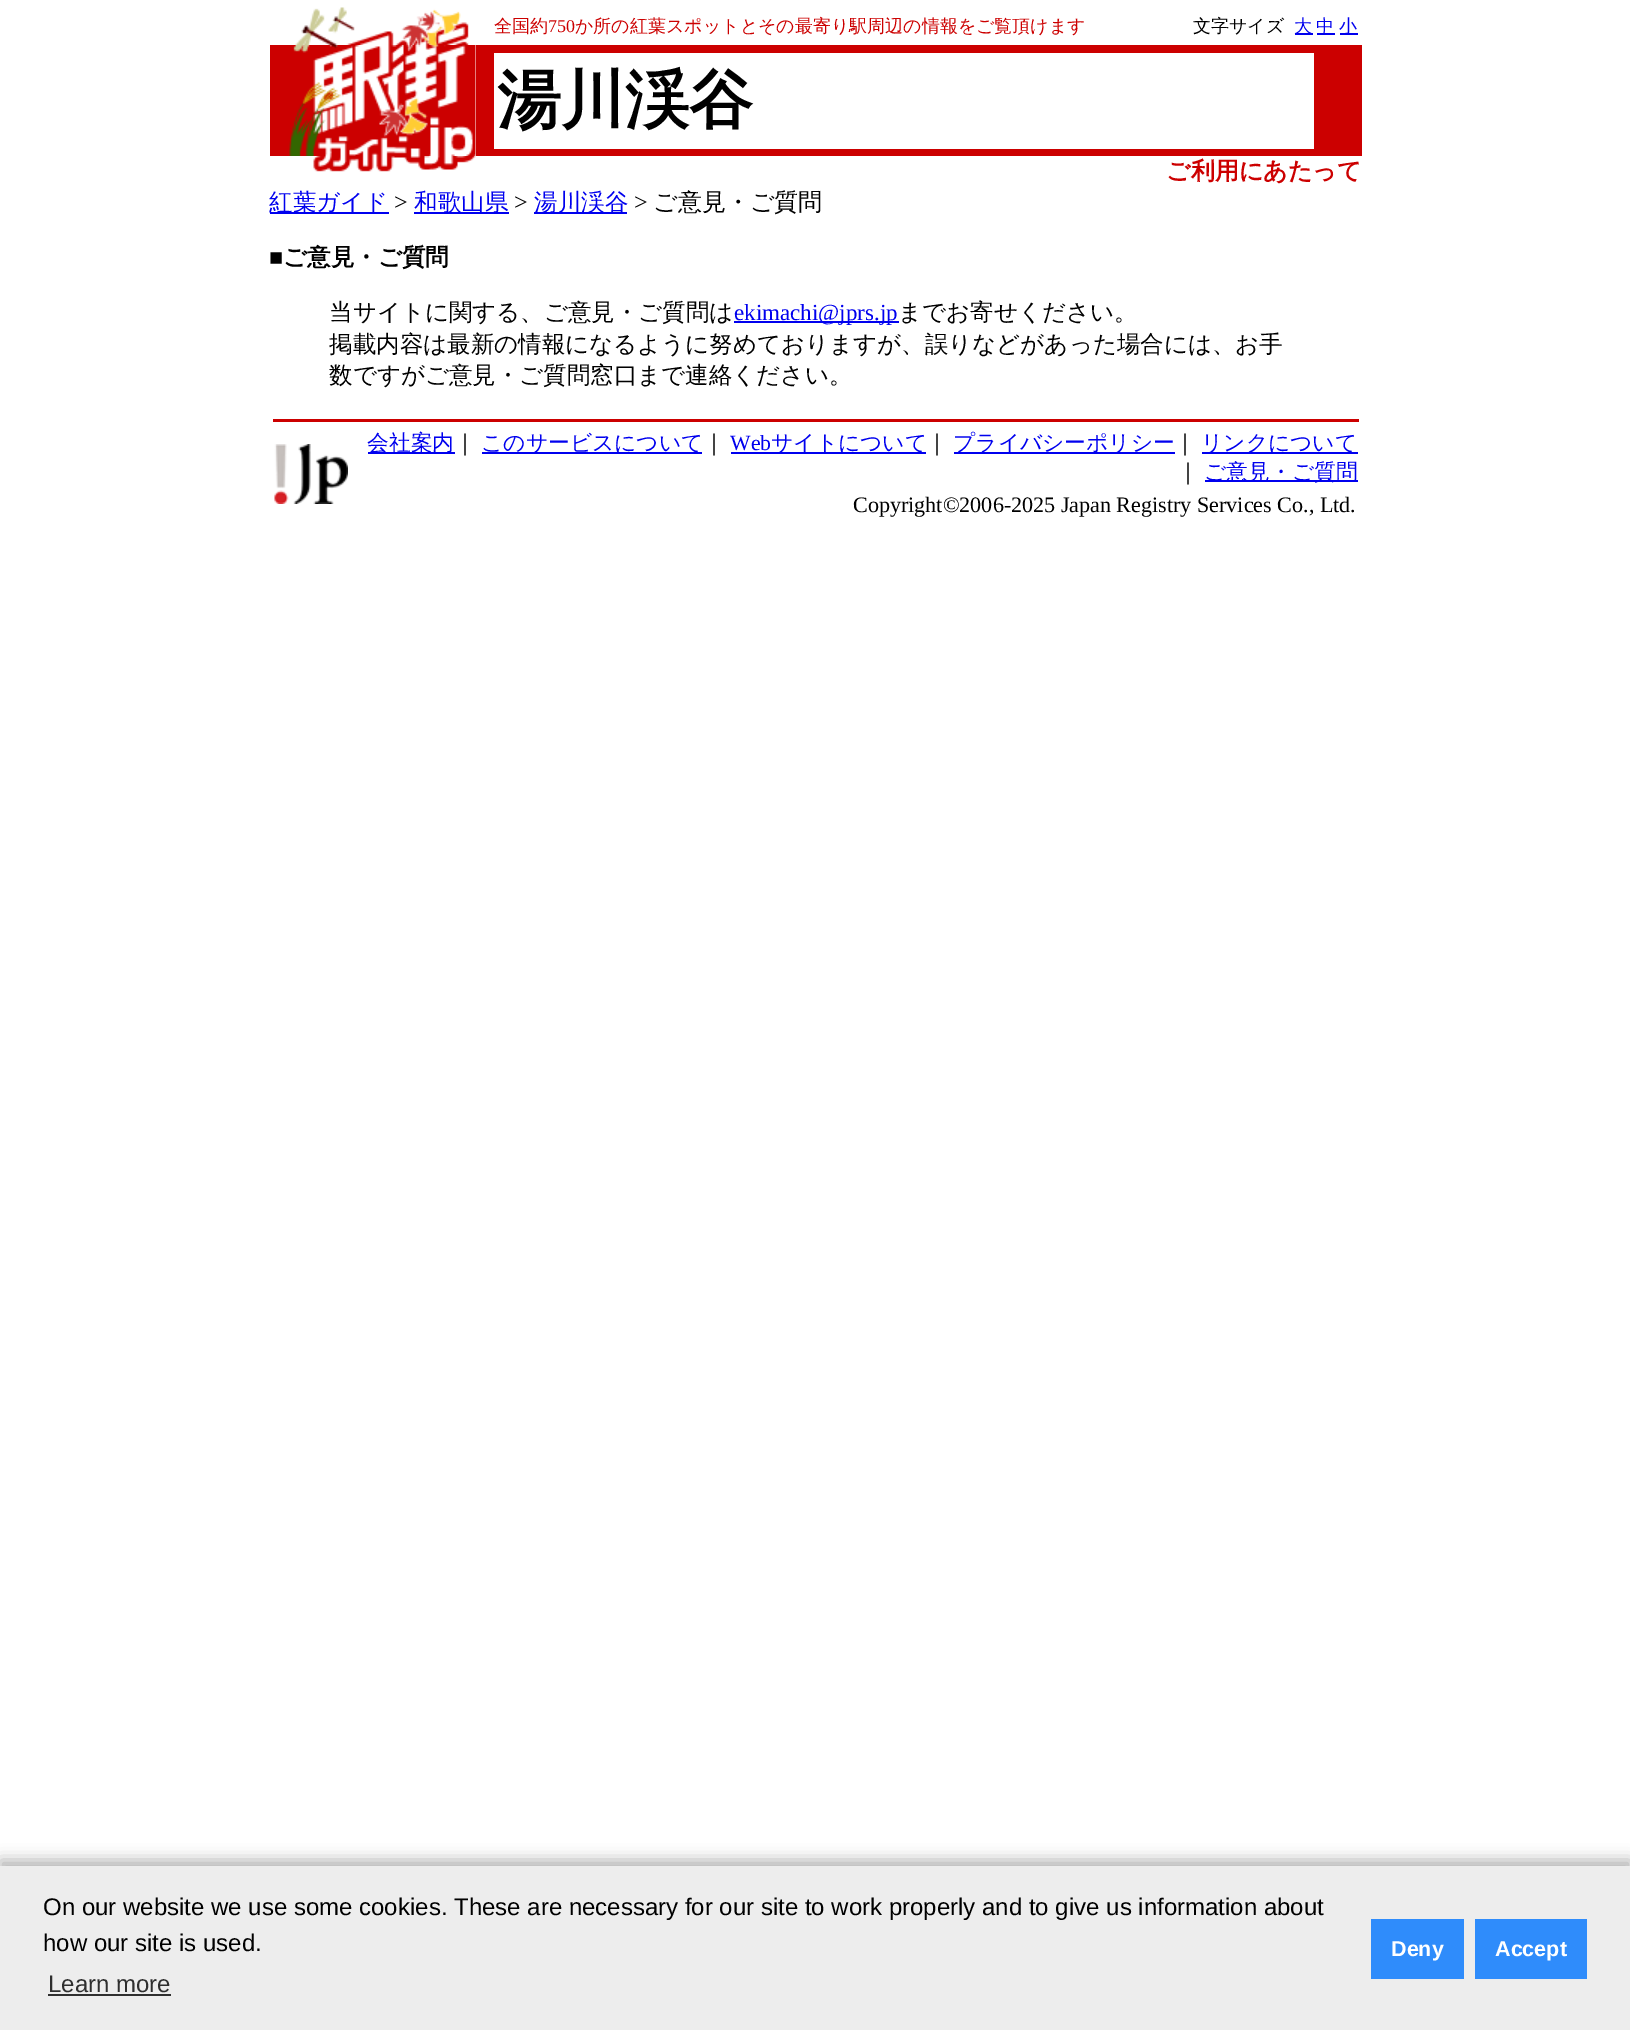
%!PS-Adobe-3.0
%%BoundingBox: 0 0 1630 2030
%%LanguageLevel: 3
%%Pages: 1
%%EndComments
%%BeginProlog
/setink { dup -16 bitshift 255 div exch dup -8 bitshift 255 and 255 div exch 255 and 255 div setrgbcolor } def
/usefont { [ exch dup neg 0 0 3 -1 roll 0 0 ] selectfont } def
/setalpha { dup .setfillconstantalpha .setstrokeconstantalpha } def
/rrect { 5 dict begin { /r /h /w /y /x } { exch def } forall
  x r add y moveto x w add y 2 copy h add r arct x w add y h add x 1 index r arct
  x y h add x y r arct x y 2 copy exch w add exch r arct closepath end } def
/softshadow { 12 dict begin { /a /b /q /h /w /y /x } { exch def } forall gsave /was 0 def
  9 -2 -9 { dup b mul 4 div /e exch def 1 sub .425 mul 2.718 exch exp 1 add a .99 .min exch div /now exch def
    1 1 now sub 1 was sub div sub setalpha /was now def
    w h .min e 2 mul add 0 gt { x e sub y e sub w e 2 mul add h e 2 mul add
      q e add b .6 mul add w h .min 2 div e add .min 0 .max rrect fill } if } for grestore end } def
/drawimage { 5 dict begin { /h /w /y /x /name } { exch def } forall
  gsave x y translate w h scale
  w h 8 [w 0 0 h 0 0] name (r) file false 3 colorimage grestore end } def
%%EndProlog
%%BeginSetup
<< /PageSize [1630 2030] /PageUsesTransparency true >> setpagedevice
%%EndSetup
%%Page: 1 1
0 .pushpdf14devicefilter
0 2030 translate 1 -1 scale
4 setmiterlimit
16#FFFFFF setink
0 0 1630 2030 rectfill
(img1.raw) 295 7 174 38 drawimage
/WenQuanYiZenHei-Medium 18 usefont
16#CC0000 setink
494 32 moveto (全国約) show
/LiberationSerif-Regular 18 usefont
548 32 moveto (750) show
/WenQuanYiZenHei-Medium 18 usefont
575 32 moveto (か所の紅葉スポットとその最寄り駅周辺の情報をご覧頂けます) show
16#000000 setink
1193 32 moveto (文字サイズ) show
16#0000EE setink
1295 33 18 2 rectfill
1294 32 moveto (大) show
1317 33 18 2 rectfill
1316 32 moveto (中) show
1340 33 18 2 rectfill
1339 32 moveto (小) show
16#CC0000 setink
270 45 15 111 rectfill
(img2.raw) 285 45 191 111 drawimage
476 45 886 111 rectfill
16#FFFFFF setink
494 53 820 96 rectfill
/WenQuanYiZenHei-Bold 64 usefont
16#000000 setink
497 122 moveto (湯川渓谷) show
(img3.raw) 313 156 163 16 drawimage
/WenQuanYiZenHei-Bold 24 usefont
16#CC0000 setink
1166 179 moveto (ご利用にあたって) show
16#0000EE setink
270 212 119 2 rectfill
/WenQuanYiZenHei-Medium 23.5 usefont
269 210 moveto (紅葉ガイド) show
/LiberationSerif-Regular 24 usefont
16#000000 setink
394 210 moveto (>) show
16#0000EE setink
414 212 95 2 rectfill
/WenQuanYiZenHei-Medium 23.5 usefont
414 210 moveto (和歌山県) show
/LiberationSerif-Regular 24 usefont
16#000000 setink
514 210 moveto (>) show
16#0000EE setink
534 212 93 2 rectfill
/WenQuanYiZenHei-Medium 23.5 usefont
534 210 moveto (湯川渓谷) show
/LiberationSerif-Regular 24 usefont
16#000000 setink
634 210 moveto (>) show
/WenQuanYiZenHei-Medium 24 usefont
653 210 moveto (ご意見・ご質問) show
/LiberationSerif-Bold 23.5 usefont
269 265 moveto (■) show
/WenQuanYiZenHei-Bold 23.5 usefont
283 265 moveto (ご意見・ご質問) show
/WenQuanYiZenHei-Medium 23.5 usefont
329 320 moveto (当サイトに関する、ご意見・ご質問は) show
16#0000EE setink
734 321 165 2 rectfill
/LiberationSerif-Regular 23 usefont
734 320 moveto (ekimachi@jprs.jp) show
/WenQuanYiZenHei-Medium 23.5 usefont
16#000000 setink
[
    [(までお寄せください。) 898 320]
    [(掲載内容は最新の情報になるように努めておりますが、誤りなどがあった場合には、お手) 329 352]
    [(数ですがご意見・ご質問窓口まで連絡ください。) 329 383]
] { aload pop moveto show } forall
16#CC0000 setink
273 419 1086 3 rectfill
(img4.raw) 274 444 74 60 drawimage
16#0000EE setink
368 452 87 2 rectfill
/WenQuanYiZenHei-Medium 21.75 usefont
367 450 moveto (会社案内) show
/WenQuanYiZenHei-Medium 22.1 usefont
16#000000 setink
454 450 moveto (｜) show
16#0000EE setink
482 452 220 2 rectfill
/WenQuanYiZenHei-Medium 21.75 usefont
481 450 moveto (このサービスについて) show
/WenQuanYiZenHei-Medium 22.1 usefont
16#000000 setink
703 450 moveto (｜) show
/LiberationSerif-Regular 21.75 usefont
16#0000EE setink
730 450 moveto (Web) show
731 452 195 2 rectfill
/WenQuanYiZenHei-Medium 21.75 usefont
771 450 moveto (サイトについて) show
/WenQuanYiZenHei-Medium 22.1 usefont
16#000000 setink
926 450 moveto (｜) show
16#0000EE setink
954 452 221 2 rectfill
/WenQuanYiZenHei-Medium 21.75 usefont
953 450 moveto (プライバシーポリシー) show
/WenQuanYiZenHei-Medium 22.1 usefont
16#000000 setink
1174 450 moveto (｜) show
16#0000EE setink
1202 452 156 2 rectfill
/WenQuanYiZenHei-Medium 21.75 usefont
1201 450 moveto (リンクについて) show
/WenQuanYiZenHei-Medium 22.1 usefont
16#000000 setink
1177 479 moveto (｜) show
16#0000EE setink
1205 480 153 2 rectfill
/WenQuanYiZenHei-Medium 21.75 usefont
1204 479 moveto (ご意見・ご質問) show
/LiberationSerif-Regular 22.1 usefont
16#000000 setink
853 512 moveto (Copyright©2006-2025 Japan Registry Services Co., Ltd.) show
0 1860 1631 165 0 7.5 0.3 softshadow
16#EDEDED setink
0 1866 1630 164 rectfill
/LiberationSans-Regular 24 usefont
16#000000 setink
43 1915 moveto (On our website we use some cookies. These are necessary for our site to work properly and to give us information about) show
43 1951 moveto (how our site is used.) show
16#2F2F2F setink
48 1992 moveto (Learn more) show
48 1994 123 2 rectfill
16#2F8CFB setink
1371 1919 93 60 rectfill
/LiberationSans-Bold 21.5 usefont
16#FFFFFF setink
1391 1956 moveto (Deny) show
16#2F8CFB setink
1475 1919 112 60 rectfill
16#FFFFFF setink
1495 1956 moveto (Accept) show
.poppdf14devicefilter showpage
%%EOF
